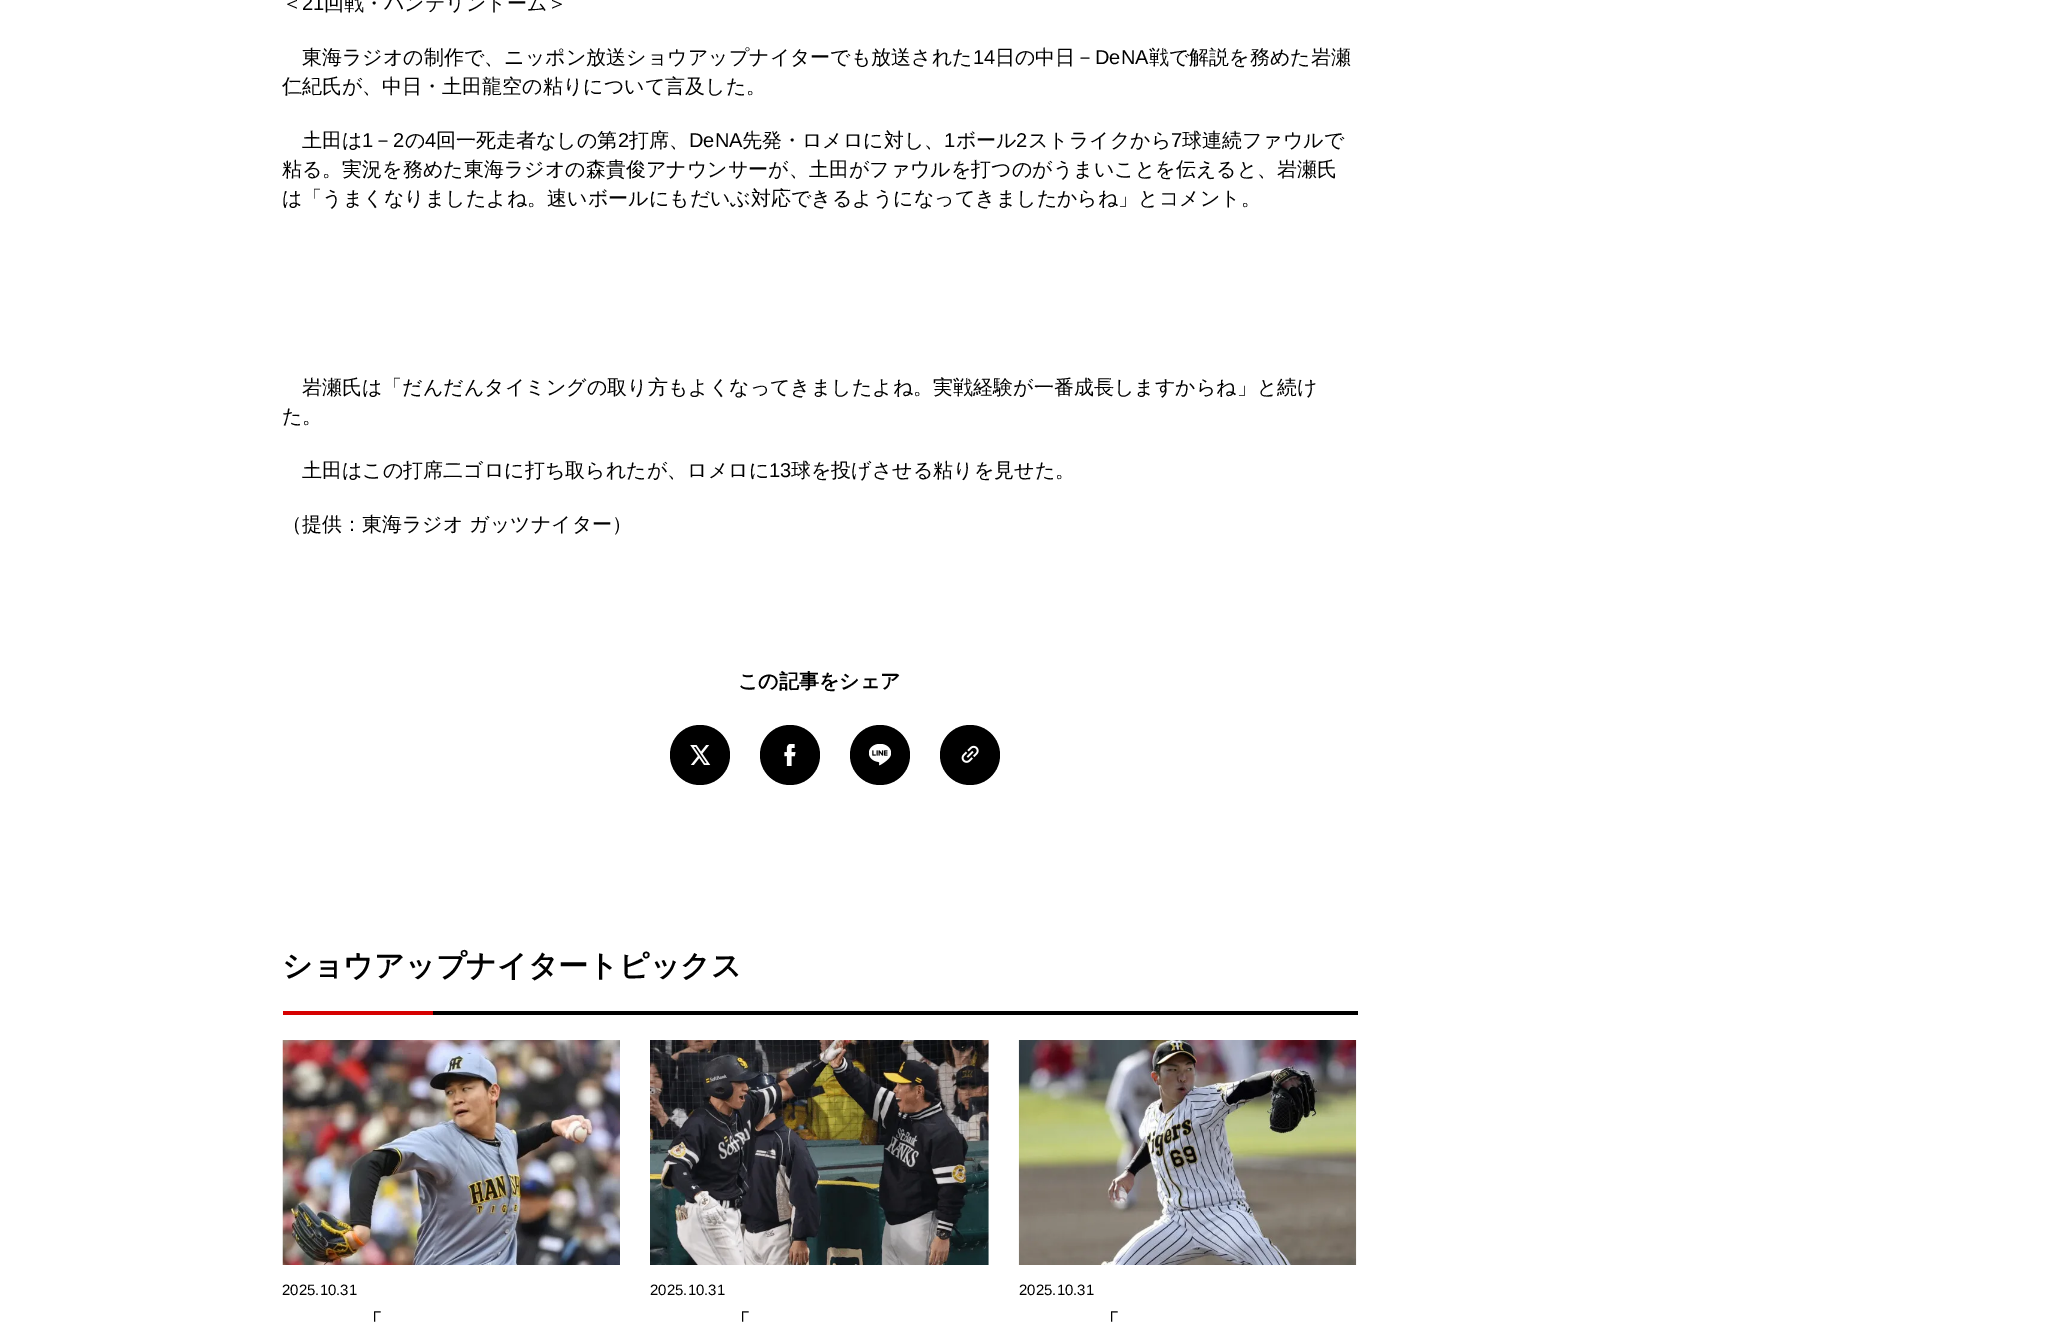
%!PS-Adobe-3.0
%%BoundingBox: 0 0 2063 1322
%%LanguageLevel: 3
%%Pages: 1
%%EndComments
%%BeginProlog
/setink { dup -16 bitshift 255 div exch dup -8 bitshift 255 and 255 div exch 255 and 255 div setrgbcolor } def
/usefont { [ exch dup neg 0 0 3 -1 roll 0 0 ] selectfont } def
/disc { newpath 0 360 arc closepath } def
/drawimage { 5 dict begin { /h /w /y /x /name } { exch def } forall
  gsave x y translate w h scale
  w h 8 [w 0 0 h 0 0] name (r) file false 3 colorimage grestore end } def
%%EndProlog
%%BeginSetup
<< /PageSize [2063 1322] >> setpagedevice
%%EndSetup
%%Page: 1 1
0 1322 translate 1 -1 scale
4 setmiterlimit
16#FFFFFF setink
0 0 2063 1322 rectfill
/WenQuanYiZenHei-Medium 20 usefont
16#000000 setink
282 10 moveto (＜) show
/LiberationSans-Regular 20 usefont
302 10 moveto (21) show
/WenQuanYiZenHei-Medium 20 usefont
324 10 moveto (回戦・バンテリンドーム＞) show
302 64 moveto (東海ラジオの制作で、ニッポン放送ショウアップナイターでも放送された) show
/LiberationSans-Regular 20 usefont
973 64 moveto (14) show
/WenQuanYiZenHei-Medium 20 usefont
995 64 moveto (日の中日－) show
/LiberationSans-Regular 20 usefont
1095 64 moveto (DeNA) show
/WenQuanYiZenHei-Medium 20 usefont
[
    [(戦で解説を務めた岩瀬) 1149 64]
    [(仁紀氏が、中日・土田龍空の粘りについて言及した。) 282 93]
    [(土田は) 302 147]
] { aload pop moveto show } forall
/LiberationSans-Regular 20 usefont
362 147 moveto (1) show
/WenQuanYiZenHei-Medium 20 usefont
373 147 moveto (－) show
/LiberationSans-Regular 20 usefont
393 147 moveto (2) show
/WenQuanYiZenHei-Medium 20 usefont
405 147 moveto (の) show
/LiberationSans-Regular 20 usefont
425 147 moveto (4) show
/WenQuanYiZenHei-Medium 20 usefont
436 147 moveto (回一死走者なしの第) show
/LiberationSans-Regular 20 usefont
618 147 moveto (2) show
/WenQuanYiZenHei-Medium 20 usefont
629 147 moveto (打席、) show
/LiberationSans-Regular 20 usefont
689 147 moveto (DeNA) show
/WenQuanYiZenHei-Medium 20 usefont
742 147 moveto (先発・ロメロに対し、) show
/LiberationSans-Regular 20 usefont
944 147 moveto (1) show
/WenQuanYiZenHei-Medium 20 usefont
956 147 moveto (ボール) show
/LiberationSans-Regular 20 usefont
1016 147 moveto (2) show
/WenQuanYiZenHei-Medium 20 usefont
1028 147 moveto (ストライクから) show
/LiberationSans-Regular 20 usefont
1171 147 moveto (7) show
/WenQuanYiZenHei-Medium 20 usefont
[
    [(球連続ファウルで) 1182 147]
    [(粘る。実況を務めた東海ラジオの森貴俊アナウンサーが、土田がファウルを打つのがうまいことを伝えると、岩瀬氏) 282 176]
    [(は「うまくなりましたよね。速いボールにもだいぶ対応できるようになってきましたからね」とコメント。) 282 205]
    [(岩瀬氏は「だんだんタイミングの取り方もよくなってきましたよね。実戦経験が一番成長しますからね」と続け) 302 394]
    [(た。) 282 423]
    [(土田はこの打席二ゴロに打ち取られたが、ロメロに) 302 477]
] { aload pop moveto show } forall
/LiberationSans-Regular 20 usefont
769 477 moveto (13) show
/WenQuanYiZenHei-Medium 20 usefont
791 477 moveto (球を投げさせる粘りを見せた。) show
282 531 moveto (（提供：東海ラジオ ガッツナイター）) show
/WenQuanYiZenHei-Bold 20 usefont
738 688 moveto (この記事をシェア) show
700 755 30 disc fill
(img1.raw) 690 745 21 20 drawimage
790 755 30 disc fill
(img2.raw) 784 744 12 22 drawimage
880 755 30 disc fill
(img3.raw) 869 744 22 22 drawimage
970 755 30 disc fill
(img4.raw) 961 745 18 18 drawimage
433 1011 925 4 rectfill
/WenQuanYiZenHei-Bold 30 usefont
282 976 moveto (ショウアップナイタートピックス) show
16#D60000 setink
283 1011 150 4 rectfill
(img5.raw) 282 1040 338 225 drawimage
/LiberationSans-Regular 15 usefont
16#000000 setink
282 1295 moveto (2025.10.31) show
/WenQuanYiZenHei-Bold 20 usefont
362 1328 moveto (「) show
(img6.raw) 650 1040 339 225 drawimage
/LiberationSans-Regular 15 usefont
650 1295 moveto (2025.10.31) show
/WenQuanYiZenHei-Bold 20 usefont
730 1328 moveto (「) show
(img7.raw) 1018 1040 339 225 drawimage
/LiberationSans-Regular 15 usefont
1019 1295 moveto (2025.10.31) show
/WenQuanYiZenHei-Bold 20 usefont
1099 1328 moveto (「) show
showpage
%%EOF
